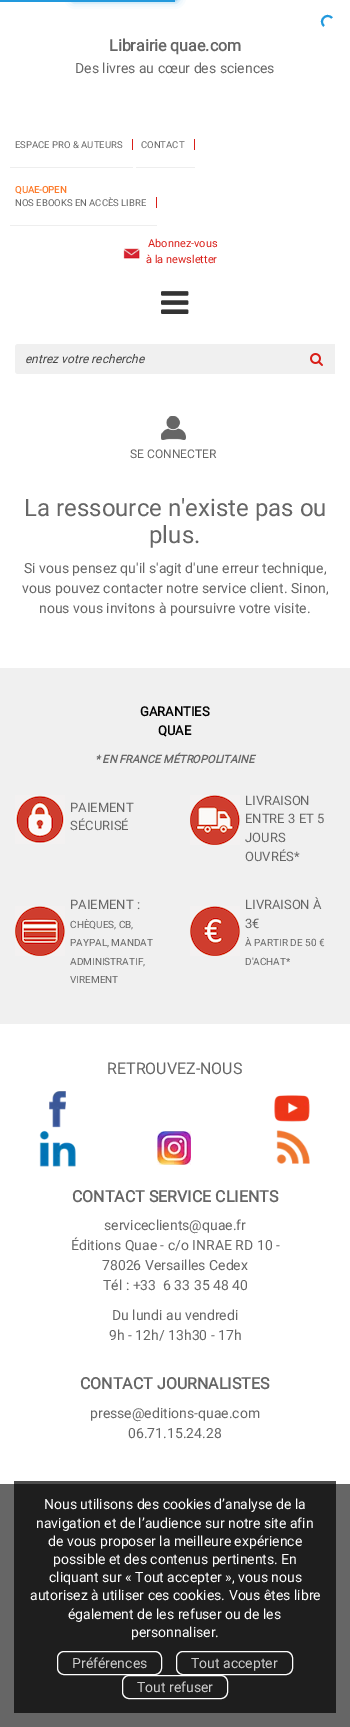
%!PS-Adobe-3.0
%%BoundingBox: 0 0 350 1727
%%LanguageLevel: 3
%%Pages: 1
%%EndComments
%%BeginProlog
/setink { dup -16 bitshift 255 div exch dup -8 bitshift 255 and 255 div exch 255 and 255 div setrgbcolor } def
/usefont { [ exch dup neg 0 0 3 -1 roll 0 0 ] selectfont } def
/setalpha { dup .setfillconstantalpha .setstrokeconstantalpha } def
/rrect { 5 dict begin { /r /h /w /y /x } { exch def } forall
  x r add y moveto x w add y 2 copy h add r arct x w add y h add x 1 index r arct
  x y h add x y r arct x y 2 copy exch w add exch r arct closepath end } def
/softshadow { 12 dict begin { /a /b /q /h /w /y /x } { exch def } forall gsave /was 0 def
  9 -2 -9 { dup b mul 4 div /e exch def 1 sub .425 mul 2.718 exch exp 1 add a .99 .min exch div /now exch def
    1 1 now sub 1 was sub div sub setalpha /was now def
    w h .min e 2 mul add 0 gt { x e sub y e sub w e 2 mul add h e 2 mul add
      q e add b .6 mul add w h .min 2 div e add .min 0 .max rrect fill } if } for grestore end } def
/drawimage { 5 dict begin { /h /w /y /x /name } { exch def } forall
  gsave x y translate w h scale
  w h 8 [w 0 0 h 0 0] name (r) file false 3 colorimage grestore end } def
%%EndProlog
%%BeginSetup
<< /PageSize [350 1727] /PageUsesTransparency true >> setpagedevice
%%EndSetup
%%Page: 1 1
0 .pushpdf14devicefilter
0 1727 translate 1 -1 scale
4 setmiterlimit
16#FFFFFF setink
0 0 350 1727 rectfill
16#2299DD setink
0 0 175 2 rectfill
75 -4 100 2 0 2.5 1 softshadow
75 -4 100 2 0 5 1 softshadow
2 setlinewidth
324 26 moveto 318 20.5 326.5 12 332 18 curveto stroke
/Roboto-Bold 16 usefont
16#666666 setink
109 51 moveto (Librairie quae.com) show
/Roboto-Regular 14 usefont
75 73 moveto (Des livres au cœur des sciences) show
16#EEEEEE setink
10 167 123 1 rectfill
/Roboto-Regular 9.5 usefont
16#666666 setink
15 148 moveto (ESPACE PRO & AUTEURS) show
16#D91E18 setink
132 139 1 11 rectfill
16#EEEEEE setink
136 167 59 1 rectfill
16#666666 setink
141 148 moveto (CONTACT) show
16#D91E18 setink
194 139 1 11 rectfill
16#EEEEEE setink
10 225 147 1 rectfill
/Roboto-Bold 9.5 usefont
16#FC7C2D setink
15 193 moveto (QUAE-OPEN) show
/Roboto-Regular 9.5 usefont
16#666666 setink
15 206 moveto (NOS EBOOKS EN ACCÈS LIBRE) show
16#D91E18 setink
156 197 1 11 rectfill
/Roboto-Regular 11 usefont
148 247 moveto (Abonnez-vous) show
(img1.raw) 123 248 17 11 drawimage
146 263 moveto (à la newsletter) show
(img2.raw) 161 291 28 23 drawimage
16#F0F0F0 setink
18 344 moveto 298 344 lineto 298 374 lineto 18 374 lineto 16.5 374 15 372.5 15 371 curveto 15 347 lineto 15 345.5 16.5 344 18 344 curveto closepath fill
/Roboto-Italic 12 usefont
16#444444 setink
25 363 moveto (entrez votre recherche) show
16#F0F0F0 setink
298 344 37 30 rectfill
(img3.raw) 310 353 13 13 drawimage
(img4.raw) 161 416 25 24 drawimage
/Roboto-Regular 12 usefont
16#666666 setink
130 458 moveto (SE CONNECTER) show
/Roboto-Regular 24 usefont
24 516 moveto (La ressource n'existe pas ou) show
149 543 moveto (plus.) show
/Roboto-Regular 14 usefont
[
    [(Si vous pensez qu'il s'agit d'une erreur technique,) 24 573]
    [(vous pouvez contacter notre service client. Sinon,) 22 593]
    [(nous vous invitons à poursuivre votre visite.) 39 613]
] { aload pop moveto show } forall
16#F0F0F0 setink
0 668 350 356 rectfill
/Roboto-Bold 13 usefont
16#000000 setink
140 716 moveto (GARANTIES) show
158 735 moveto (QUAE) show
/Roboto-BoldItalic 11 usefont
16#666666 setink
95 763 moveto (* EN FRANCE MÉTROPOLITAINE) show
(img5.raw) 15 795 50 49 drawimage
/Roboto-Regular 13 usefont
70 812 moveto (PAIEMENT) show
70 830 moveto (SÉCURISÉ) show
(img6.raw) 190 795 50 50 drawimage
[
    [(LIVRAISON) 245 805]
    [(ENTRE 3 ET 5) 245 823]
    [(JOURS) 245 842]
    [(OUVRÉS*) 245 861]
] { aload pop moveto show } forall
(img7.raw) 15 906 50 50 drawimage
70 909 moveto (PAIEMENT :) show
/Roboto-Regular 10 usefont
[
    [(CHÈQUES, CB,) 70 928]
    [(PAYPAL, MANDAT) 70 946]
    [(ADMINISTRATIF,) 70 965]
    [(VIREMENT) 70 983]
] { aload pop moveto show } forall
(img8.raw) 190 906 50 50 drawimage
/Roboto-Regular 13 usefont
245 909 moveto (LIVRAISON À) show
245 928 moveto (3€) show
/Roboto-Regular 10 usefont
245 946 moveto (À PARTIR DE 50 €) show
245 965 moveto (D'ACHAT*) show
/Roboto-Regular 16 usefont
107 1074 moveto (RETROUVEZ-NOUS) show
(img9.raw) 49 1091 17 37 drawimage
(img10.raw) 274 1095 36 27 drawimage
(img11.raw) 39 1130 37 37 drawimage
(img12.raw) 157 1131 34 34 drawimage
(img13.raw) 276 1130 34 34 drawimage
/Roboto-Bold 16 usefont
72 1202 moveto (CONTACT SERVICE CLIENTS) show
/Roboto-Regular 14 usefont
[
    [(serviceclients@quae.fr) 104 1230]
    [(Éditions Quae - c/o INRAE RD 10 -) 71 1250]
    [(78026 Versailles Cedex) 102 1270]
    [(Tél : +33  6 33 35 48 40) 103 1290]
    [(Du lundi au vendredi) 112 1320]
    [(9h - 12h/ 13h30 - 17h) 109 1340]
] { aload pop moveto show } forall
/Roboto-Bold 16 usefont
80 1389 moveto (CONTACT JOURNALISTES) show
/Roboto-Regular 14 usefont
90 1418 moveto (presse@editions-quae.com) show
128 1438 moveto (06.71.15.24.28) show
0 1484 350 243 rectfill
0.7 setalpha
16#000000 setink
14 1481 322 232 rectfill
1 setalpha
16#FFFFFF setink
[
    [(Nous utilisons des cookies d’analyse de la) 44 1509]
    [(navigation et de l’audience sur notre site afin) 36 1528]
    [(de vous proposer la meilleure expérience) 48 1546]
    [(possible et des contenus pertinents. En) 53 1564]
    [(cliquant sur « Tout accepter », vous nous) 49 1582]
    [(autorisez à utiliser ces cookies. Vous êtes libre) 30 1600]
    [(également de les refuser ou de les) 68 1619]
    [(personnaliser.) 131 1637]
] { aload pop moveto show } forall
1 setlinewidth
57.5 1651.5 104 23 6.5 rrect stroke
16#CCCCCC setink
72 1668 moveto (Préférences) show
16#FFFFFF setink
176.5 1651.5 116 23 6.5 rrect stroke
16#CCCCCC setink
191 1668 moveto (Tout accepter) show
16#FFFFFF setink
122.5 1675.5 105 23 6.5 rrect stroke
16#CCCCCC setink
137 1692 moveto (Tout refuser) show
.poppdf14devicefilter showpage
%%EOF
